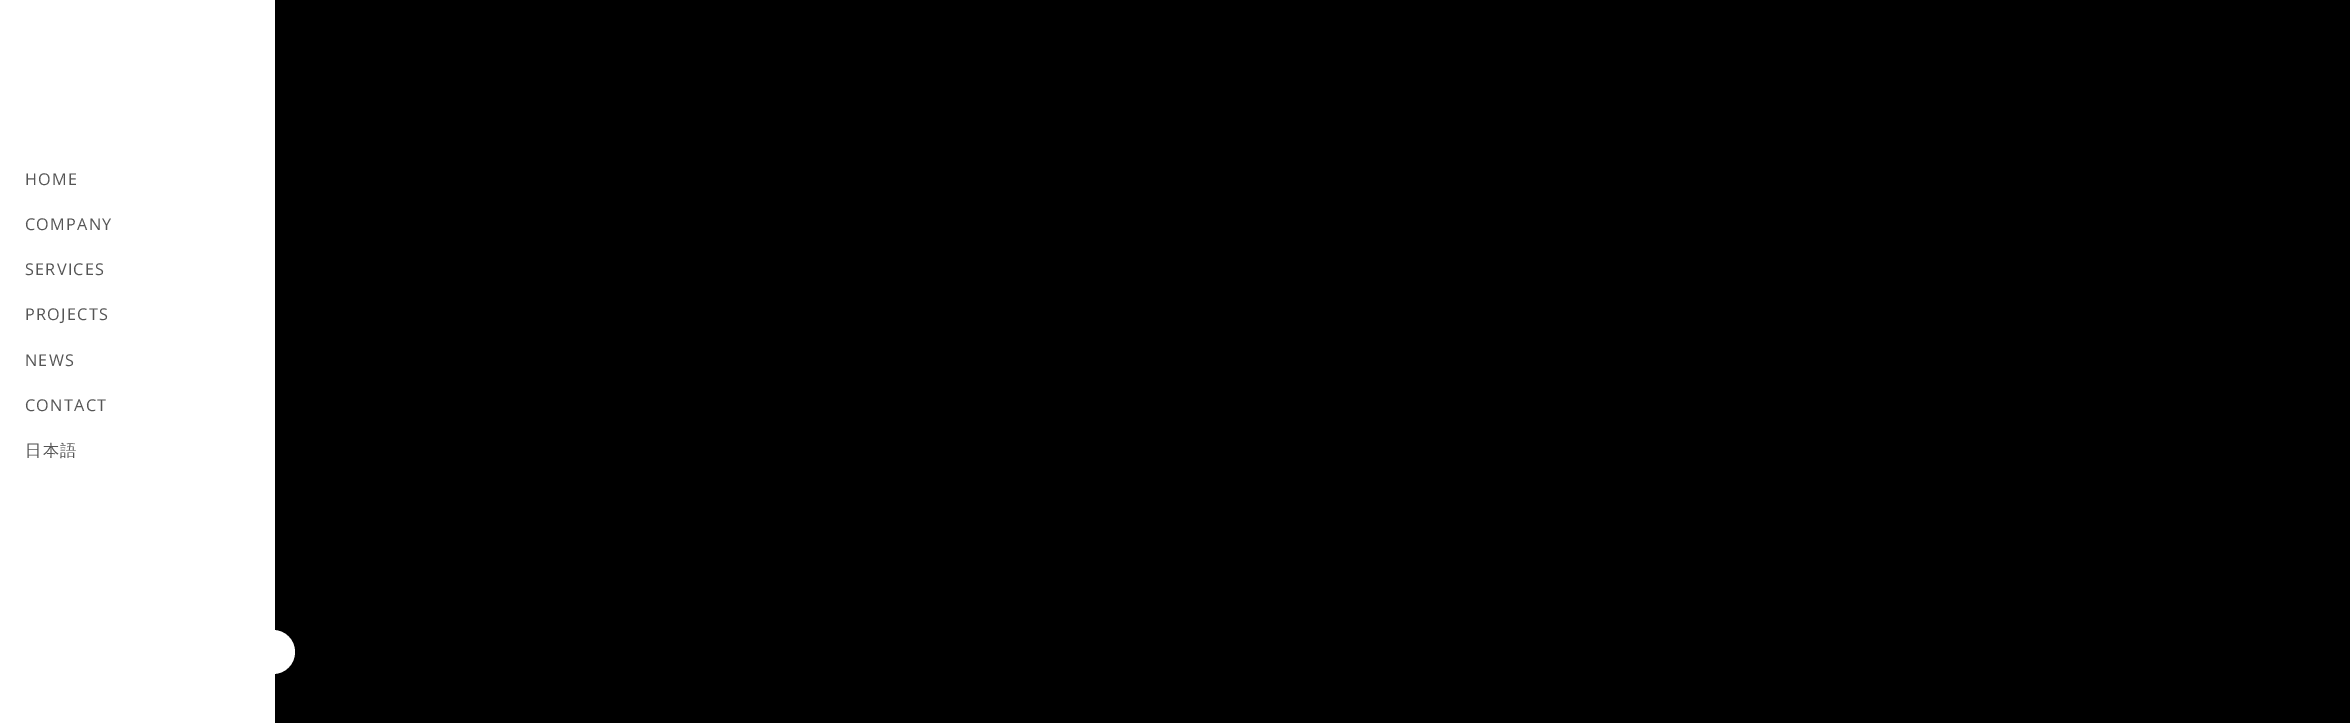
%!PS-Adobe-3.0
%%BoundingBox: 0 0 2350 723
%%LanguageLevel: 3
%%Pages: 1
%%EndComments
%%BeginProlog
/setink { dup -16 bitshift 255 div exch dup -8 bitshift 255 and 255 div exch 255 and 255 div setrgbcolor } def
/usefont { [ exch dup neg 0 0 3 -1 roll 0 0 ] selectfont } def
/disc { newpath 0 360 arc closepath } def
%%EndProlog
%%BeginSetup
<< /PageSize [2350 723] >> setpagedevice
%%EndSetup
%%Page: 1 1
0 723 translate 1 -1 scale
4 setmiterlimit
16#000000 setink
0 0 2350 723 rectfill
16#FFFFFF setink
0 0 275 723 rectfill
/OpenSans-Regular 16.25 usefont
16#555555 setink
25 185 moveto 1.25 0 (HOME) ashow
25 230 moveto 1.25 0 (COMPANY) ashow
25 275 moveto 1.25 0 (SERVICES) ashow
25 320 moveto 1.25 0 (PROJECTS) ashow
25 366 moveto 1.25 0 (NEWS) ashow
25 411 moveto 1.25 0 (CONTACT) ashow
/WenQuanYiZenHei-Medium 16.25 usefont
25 456 moveto 1.25 0 (日本語) ashow
16#FFFFFF setink
273 652 22 disc fill
showpage
%%EOF
